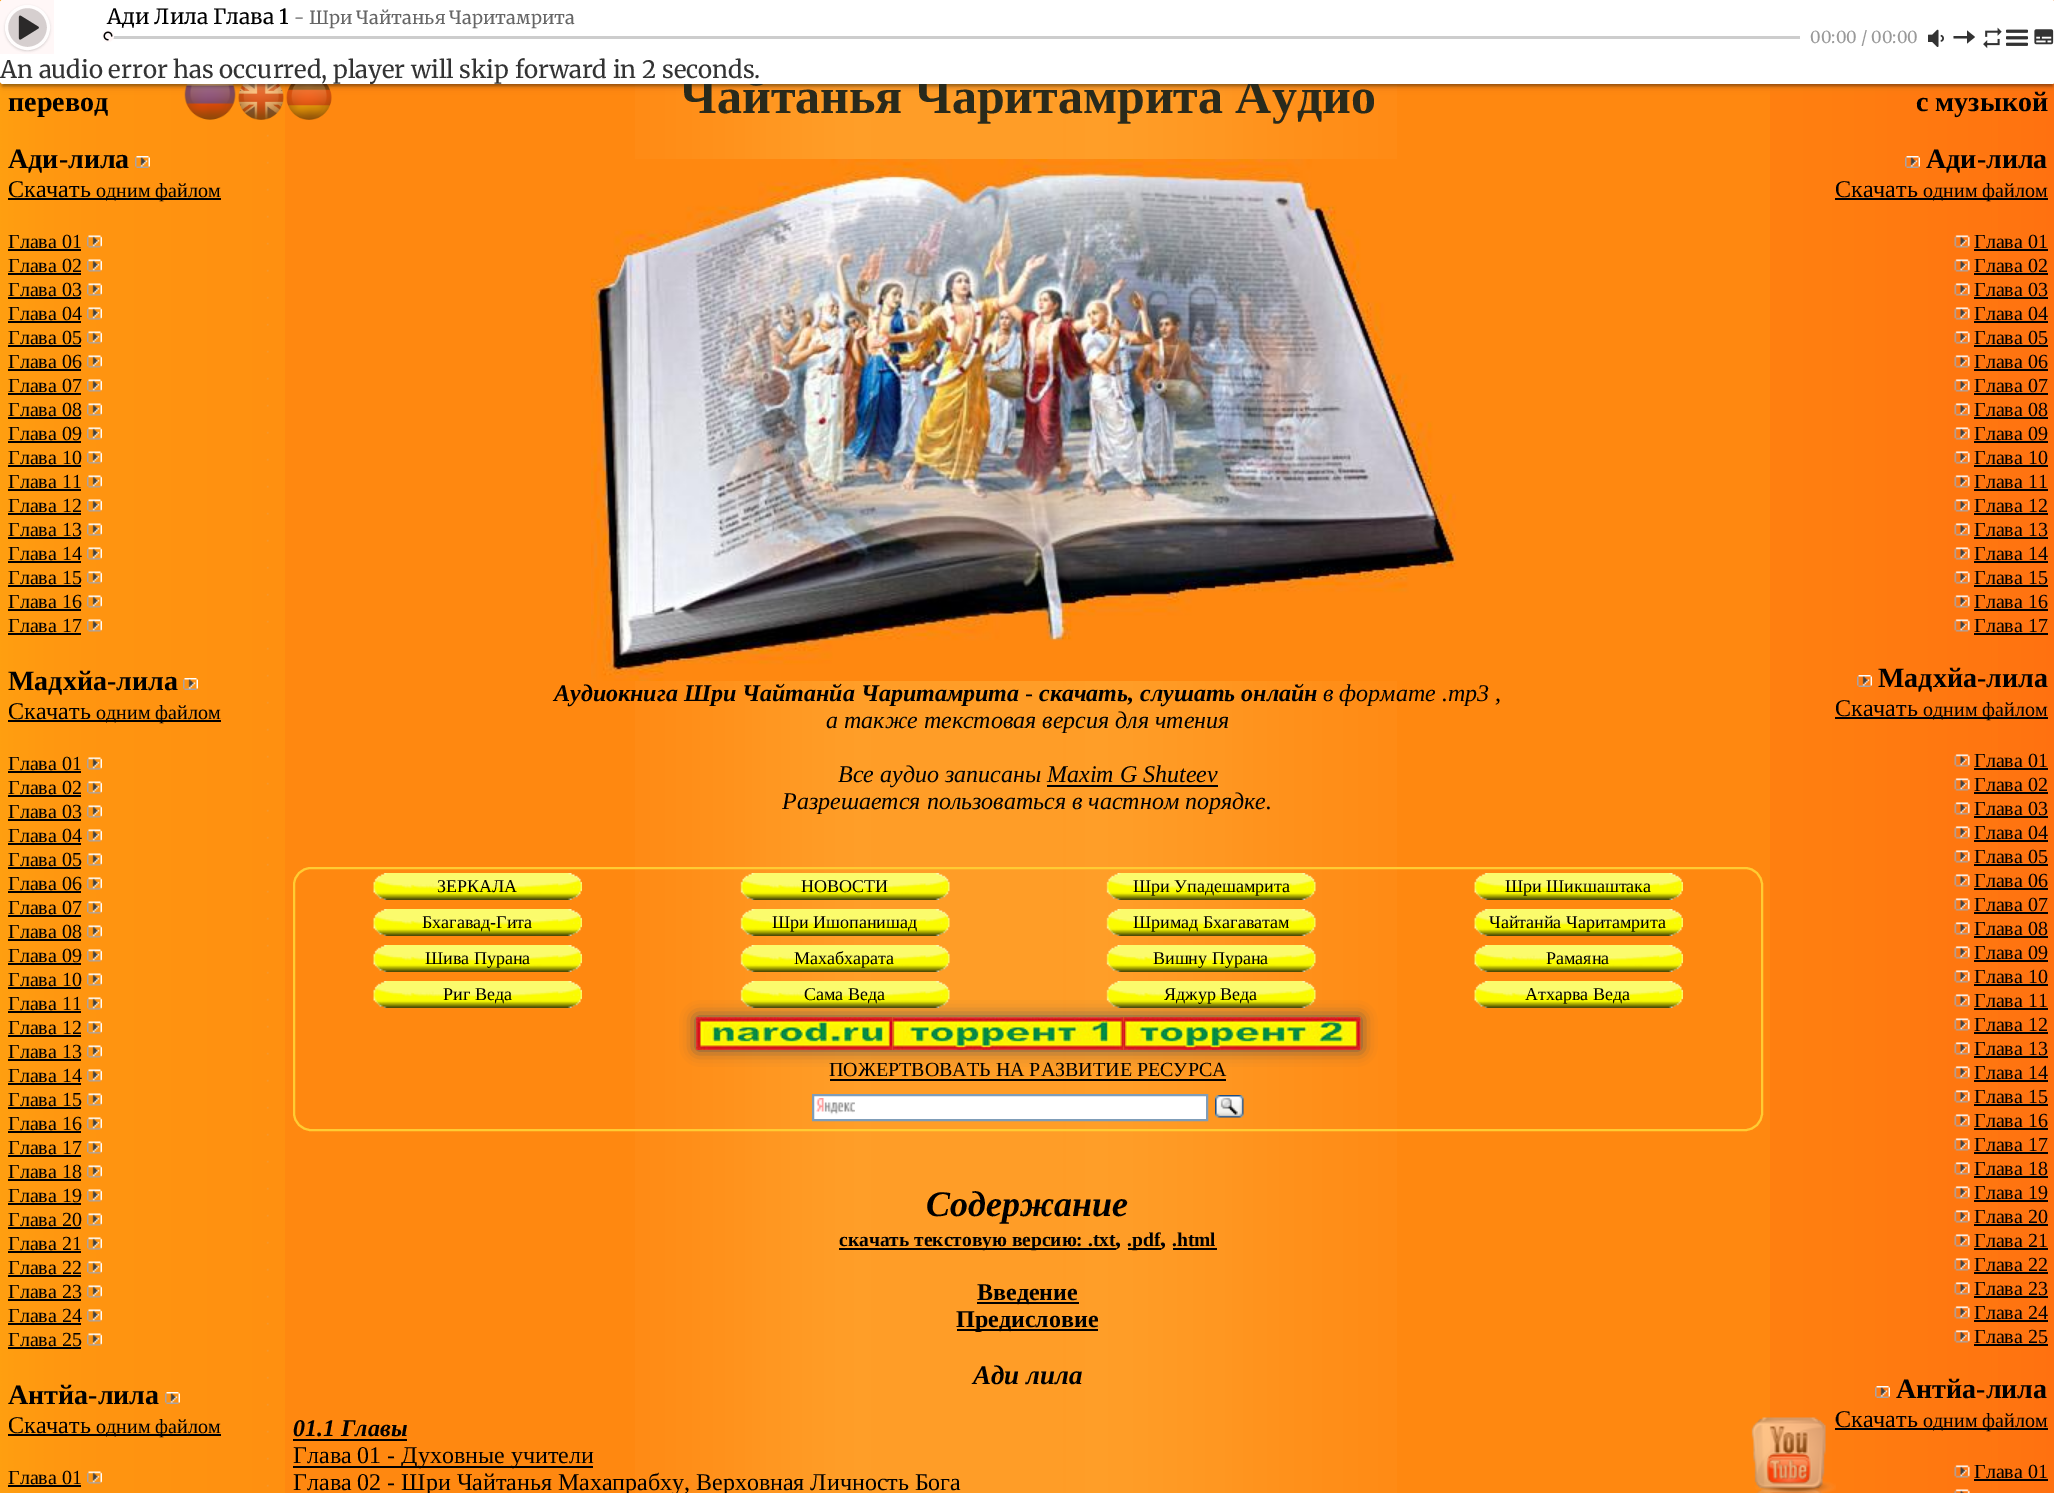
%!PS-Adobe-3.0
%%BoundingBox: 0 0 2054 1493
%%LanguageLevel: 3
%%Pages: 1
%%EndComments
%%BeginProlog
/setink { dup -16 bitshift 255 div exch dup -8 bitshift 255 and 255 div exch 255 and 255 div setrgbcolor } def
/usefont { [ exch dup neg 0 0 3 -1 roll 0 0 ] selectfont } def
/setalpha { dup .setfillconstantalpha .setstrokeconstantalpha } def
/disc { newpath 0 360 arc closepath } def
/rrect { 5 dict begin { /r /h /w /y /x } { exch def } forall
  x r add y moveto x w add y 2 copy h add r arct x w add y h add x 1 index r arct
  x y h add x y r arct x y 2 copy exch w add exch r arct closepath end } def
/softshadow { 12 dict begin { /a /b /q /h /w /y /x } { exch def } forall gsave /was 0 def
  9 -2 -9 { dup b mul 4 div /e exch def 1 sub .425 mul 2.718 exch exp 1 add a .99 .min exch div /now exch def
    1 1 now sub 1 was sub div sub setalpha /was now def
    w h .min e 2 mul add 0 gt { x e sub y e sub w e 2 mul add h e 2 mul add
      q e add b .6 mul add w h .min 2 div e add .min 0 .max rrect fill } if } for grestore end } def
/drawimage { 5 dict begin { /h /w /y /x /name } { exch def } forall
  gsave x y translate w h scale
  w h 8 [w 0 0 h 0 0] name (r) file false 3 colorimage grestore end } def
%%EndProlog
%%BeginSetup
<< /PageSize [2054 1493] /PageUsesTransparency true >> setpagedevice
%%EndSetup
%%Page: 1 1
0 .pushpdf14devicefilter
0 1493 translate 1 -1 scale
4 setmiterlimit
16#FF8810 setink
0 0 2054 1493 rectfill
(img7.raw) 0 0 285 1493 drawimage
(img12.raw) 635 84 762 1409 drawimage
(img13.raw) 184 84 52 36 drawimage
(img14.raw) 238 84 46 36 drawimage
(img15.raw) 286 84 46 36 drawimage
(img26.raw) 1770 0 284 1493 drawimage
16#000000 setink
0 2 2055 84 3 4 0.12 softshadow
3 8 2049 78 0 1 0.2 softshadow
0 3 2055 84 3 1.5 0.14 softshadow
/LiberationSerif-Bold 50 usefont
16#292A1C setink
680 113 moveto (Чайтанья Чаритамрита Аудио) show
16#FFFFFF setink
0 0 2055 84 3 rrect fill
16#FFF7F7 setink
3 0 moveto 54 0 lineto 54 54 lineto 0 54 lineto 0 3 lineto 0 1.5 1.5 0 3 0 curveto closepath fill
gsave
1 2 moveto 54 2 lineto 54 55 lineto 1 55 lineto closepath 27.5 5 moveto 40 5 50 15 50 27.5 curveto 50 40 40 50 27.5 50 curveto 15 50 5 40 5 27.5 curveto 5 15 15 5 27.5 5 curveto closepath eoclip newpath
16#333131 setink
5 6 45 45 22.5 1 0.2 softshadow
grestore
0.2 setalpha
16#333131 setink
27.5 27.5 21 disc fill
1 setalpha
16#FFFDFD setink
3 setlinewidth
27.5 27.5 21 disc stroke
(img1.raw) 18 15 21 25 drawimage
/Merriweather-Regular 21 usefont
16#000000 setink
107 24 moveto (Ади Лила Глава 1) show
/Merriweather-Regular 18 usefont
16#666666 setink
294 24 moveto (- Шри Чайтанья Чаритамрита) show
16#CDCDCD setink
107 36 1693 3 rectfill
16#FFF7F7 setink
108 36 6 disc fill
(img2.raw) 103 31 10 10 drawimage
/Merriweather-Regular 16.5 usefont
16#999999 setink
1810 43 moveto (00:00 / 00:00) show
(img3.raw) 1928 29 16 18 drawimage
16#333333 setink
1953.5 38.5 moveto 1967 38.5 lineto 1967 43.5 lineto 1975 37 lineto 1967 30.5 lineto 1967 36 lineto 1953.5 36 lineto closepath fill
(img4.raw) 1983 27 19 22 drawimage
(img5.raw) 2006 29 22 17 drawimage
(img6.raw) 2034 29 20 16 drawimage
/Merriweather-Regular 24 usefont
0 78 moveto (An audio error has occurred, player will skip forward in 2 seconds.) show
/LiberationSerif-Bold 28 usefont
16#000000 setink
8 111 moveto (перевод) show
8 168 moveto (Ади-лила) show
(img8.raw) 135 156 15 12 drawimage
/LiberationSerif-Regular 24 usefont
8 197 moveto (Скачать) show
8 198 213 2 rectfill
/LiberationSerif-Regular 20 usefont
96 197 moveto (одним файлом) show
8 248 moveto (Глава 01) show
8 249 73 2 rectfill
(img9.raw) 87 235 15 13 drawimage
8 272 moveto (Глава 02) show
8 273 73 2 rectfill
(img9.raw) 87 259 15 13 drawimage
8 296 moveto (Глава 03) show
8 297 73 2 rectfill
(img9.raw) 87 283 15 13 drawimage
8 320 moveto (Глава 04) show
8 321 73 2 rectfill
(img9.raw) 87 307 15 13 drawimage
8 344 moveto (Глава 05) show
8 345 73 2 rectfill
(img9.raw) 87 331 15 13 drawimage
8 368 moveto (Глава 06) show
8 369 73 2 rectfill
(img9.raw) 87 355 15 13 drawimage
8 392 moveto (Глава 07) show
8 393 73 2 rectfill
(img9.raw) 87 379 15 13 drawimage
8 416 moveto (Глава 08) show
8 417 73 2 rectfill
(img9.raw) 87 403 15 13 drawimage
8 440 moveto (Глава 09) show
8 441 73 2 rectfill
(img9.raw) 87 427 15 13 drawimage
8 464 moveto (Глава 10) show
8 465 73 2 rectfill
(img9.raw) 87 451 15 13 drawimage
8 488 moveto (Глава 11) show
8 489 73 2 rectfill
(img9.raw) 87 475 15 13 drawimage
8 512 moveto (Глава 12) show
8 513 73 2 rectfill
(img9.raw) 87 499 15 13 drawimage
8 536 moveto (Глава 13) show
8 537 73 2 rectfill
(img9.raw) 87 523 15 13 drawimage
8 560 moveto (Глава 14) show
8 561 73 2 rectfill
(img9.raw) 87 547 15 13 drawimage
8 584 moveto (Глава 15) show
8 585 73 2 rectfill
(img9.raw) 87 571 15 13 drawimage
8 608 moveto (Глава 16) show
8 609 73 2 rectfill
(img9.raw) 87 595 15 13 drawimage
8 632 moveto (Глава 17) show
8 633 73 2 rectfill
(img9.raw) 87 619 15 13 drawimage
/LiberationSerif-Bold 28 usefont
8 690 moveto (Мадхйа-лила) show
(img10.raw) 183 678 15 12 drawimage
/LiberationSerif-Regular 24 usefont
8 719 moveto (Скачать) show
8 720 213 2 rectfill
/LiberationSerif-Regular 20 usefont
96 719 moveto (одним файлом) show
8 770 moveto (Глава 01) show
8 771 73 2 rectfill
(img9.raw) 87 757 15 13 drawimage
8 794 moveto (Глава 02) show
8 795 73 2 rectfill
(img9.raw) 87 781 15 13 drawimage
8 818 moveto (Глава 03) show
8 819 73 2 rectfill
(img9.raw) 87 805 15 13 drawimage
8 842 moveto (Глава 04) show
8 843 73 2 rectfill
(img9.raw) 87 829 15 13 drawimage
8 866 moveto (Глава 05) show
8 867 73 2 rectfill
(img9.raw) 87 853 15 13 drawimage
8 890 moveto (Глава 06) show
8 891 73 2 rectfill
(img9.raw) 87 877 15 13 drawimage
8 914 moveto (Глава 07) show
8 915 73 2 rectfill
(img9.raw) 87 901 15 13 drawimage
8 938 moveto (Глава 08) show
8 939 73 2 rectfill
(img9.raw) 87 925 15 13 drawimage
8 962 moveto (Глава 09) show
8 963 73 2 rectfill
(img9.raw) 87 949 15 13 drawimage
8 986 moveto (Глава 10) show
8 987 73 2 rectfill
(img9.raw) 87 973 15 13 drawimage
8 1010 moveto (Глава 11) show
8 1011 73 2 rectfill
(img9.raw) 87 997 15 13 drawimage
8 1034 moveto (Глава 12) show
8 1035 73 2 rectfill
(img9.raw) 87 1021 15 13 drawimage
8 1058 moveto (Глава 13) show
8 1059 73 2 rectfill
(img9.raw) 87 1045 15 13 drawimage
8 1082 moveto (Глава 14) show
8 1083 73 2 rectfill
(img9.raw) 87 1069 15 13 drawimage
8 1106 moveto (Глава 15) show
8 1107 73 2 rectfill
(img9.raw) 87 1093 15 13 drawimage
8 1130 moveto (Глава 16) show
8 1131 73 2 rectfill
(img9.raw) 87 1117 15 13 drawimage
8 1154 moveto (Глава 17) show
8 1155 73 2 rectfill
(img9.raw) 87 1141 15 13 drawimage
8 1178 moveto (Глава 18) show
8 1179 73 2 rectfill
(img9.raw) 87 1165 15 13 drawimage
8 1202 moveto (Глава 19) show
8 1203 73 2 rectfill
(img9.raw) 87 1189 15 13 drawimage
8 1226 moveto (Глава 20) show
8 1227 73 2 rectfill
(img9.raw) 87 1213 15 13 drawimage
8 1250 moveto (Глава 21) show
8 1251 73 2 rectfill
(img9.raw) 87 1237 15 13 drawimage
8 1274 moveto (Глава 22) show
8 1275 73 2 rectfill
(img9.raw) 87 1261 15 13 drawimage
8 1298 moveto (Глава 23) show
8 1299 73 2 rectfill
(img9.raw) 87 1285 15 13 drawimage
8 1322 moveto (Глава 24) show
8 1323 73 2 rectfill
(img9.raw) 87 1309 15 13 drawimage
8 1346 moveto (Глава 25) show
8 1347 73 2 rectfill
(img9.raw) 87 1333 15 13 drawimage
/LiberationSerif-Bold 28 usefont
8 1404 moveto (Антйа-лила) show
(img11.raw) 165 1392 15 12 drawimage
/LiberationSerif-Regular 24 usefont
8 1433 moveto (Скачать) show
8 1434 213 2 rectfill
/LiberationSerif-Regular 20 usefont
96 1433 moveto (одним файлом) show
8 1484 moveto (Глава 01) show
8 1485 73 2 rectfill
(img9.raw) 87 1471 15 13 drawimage
(img16.raw) 591 159 866 522 drawimage
/LiberationSerif-BoldItalic 24 usefont
554 701 moveto (Аудиокнига Шри Чайтанйа Чаритамрита) show
/LiberationSerif-Italic 24 usefont
1025 701 moveto (-) show
/LiberationSerif-BoldItalic 24 usefont
1039 701 moveto (скачать, слушать онлайн) show
/LiberationSerif-Italic 24 usefont
[
    [(в формате .mp3 ,) 1323 701]
    [(а также текстовая версия для чтения) 826 728]
    [(Все аудио записаны Maxim G Shuteev) 838 782]
] { aload pop moveto show } forall
1047 785 171 2 rectfill
782 809 moveto (Разрешается пользоваться в частном порядке.) show
16#FFCC33 setink
2 setlinewidth
294 868 1468 262 17 rrect stroke
(img17.raw) 373 873 209 27 drawimage
/LiberationSerif-Regular 18 usefont
16#000000 setink
437 892 moveto (ЗЕРКАЛА) show
(img18.raw) 740 873 210 27 drawimage
801 892 moveto (НОВОСТИ) show
(img19.raw) 1106 873 210 27 drawimage
1133 892 moveto (Шри Упадешамрита) show
(img20.raw) 1474 873 209 27 drawimage
1505 892 moveto (Шри Шикшаштака) show
(img17.raw) 373 909 209 27 drawimage
422 928 moveto (Бхагавад-Гита) show
(img18.raw) 740 909 210 27 drawimage
772 928 moveto (Шри Ишопанишад) show
(img19.raw) 1106 909 210 27 drawimage
1133 928 moveto (Шримад Бхагаватам) show
(img20.raw) 1474 909 209 27 drawimage
1489 928 moveto (Чайтанйа Чаритамрита) show
(img17.raw) 373 945 209 27 drawimage
425 964 moveto (Шива Пурана) show
(img18.raw) 740 945 210 27 drawimage
794 964 moveto (Махабхарата) show
(img19.raw) 1106 945 210 27 drawimage
1153 964 moveto (Вишну Пурана) show
(img20.raw) 1474 945 209 27 drawimage
1546 964 moveto (Рамаяна) show
(img17.raw) 373 981 209 27 drawimage
443 1000 moveto (Риг Веда) show
(img18.raw) 740 981 210 27 drawimage
(img19.raw) 1106 981 210 27 drawimage
16#555555 setink
696 1017 665 33 0 7.5 1 softshadow
16#000000 setink
804 1000 moveto (Сама Веда) show
1164 1000 moveto (Яджур Веда) show
(img20.raw) 1474 981 209 27 drawimage
1525 1000 moveto (Атхарва Веда) show
(img21.raw) 696 1017 197 33 drawimage
(img22.raw) 892 1017 232 33 drawimage
(img23.raw) 1123 1017 238 33 drawimage
/LiberationSerif-Regular 20 usefont
829 1076 moveto (ПОЖЕРТВОВАТЬ НА РАЗВИТИЕ РЕСУРСА) show
830 1079 396 2 rectfill
16#FFFFFF setink
814 1096 392 23 rectfill
(img24.raw) 816 1098 39 17 drawimage
16#7F9DB9 setink
813 1095 394 25 rectstroke
(img25.raw) 1215 1095 29 23 drawimage
/LiberationSerif-BoldItalic 36 usefont
16#000000 setink
926 1216 moveto (Содержание) show
839 1248 277 2 rectfill
/LiberationSerif-Bold 19.5 usefont
839 1246 moveto (cкачать текстовую версию: .txt) show
/LiberationSerif-Bold 24 usefont
1115 1246 moveto (,) show
1128 1248 33 2 rectfill
/LiberationSerif-Bold 19.5 usefont
1127 1246 moveto (.pdf) show
/LiberationSerif-Bold 24 usefont
1160 1246 moveto (,) show
1173 1248 44 2 rectfill
/LiberationSerif-Bold 19.5 usefont
1172 1246 moveto (.html) show
977 1302 102 2 rectfill
/LiberationSerif-Bold 24 usefont
977 1300 moveto (Введение) show
957 1329 141 2 rectfill
956 1327 moveto (Предисловие) show
/LiberationSerif-BoldItalic 27 usefont
973 1384 moveto (Ади лила) show
/LiberationSerif-BoldItalic 24 usefont
293 1436 moveto (01.1 Главы) show
293 1439 114 2 rectfill
293 1466 300 2 rectfill
/LiberationSerif-Regular 24 usefont
293 1463 moveto (Глава 01 - Духовные учители) show
293 1490 moveto (Глава 02 - Шри Чайтанья Махапрабху, Верховная Личность Бога) show
/LiberationSerif-Bold 28 usefont
1916 111 moveto (с музыкой) show
(img27.raw) 1905 156 15 12 drawimage
1926 168 moveto (Ади-лила) show
/LiberationSerif-Regular 24 usefont
1835 197 moveto (Скачать) show
1835 198 213 2 rectfill
/LiberationSerif-Regular 20 usefont
1923 197 moveto (одним файлом) show
(img28.raw) 1954 235 16 13 drawimage
1974 248 moveto (Глава 01) show
1974 249 74 2 rectfill
(img28.raw) 1954 259 16 13 drawimage
1974 272 moveto (Глава 02) show
1974 273 74 2 rectfill
(img28.raw) 1954 283 16 13 drawimage
1974 296 moveto (Глава 03) show
1974 297 74 2 rectfill
(img28.raw) 1954 307 16 13 drawimage
1974 320 moveto (Глава 04) show
1974 321 74 2 rectfill
(img28.raw) 1954 331 16 13 drawimage
1974 344 moveto (Глава 05) show
1974 345 74 2 rectfill
(img28.raw) 1954 355 16 13 drawimage
1974 368 moveto (Глава 06) show
1974 369 74 2 rectfill
(img28.raw) 1954 379 16 13 drawimage
1974 392 moveto (Глава 07) show
1974 393 74 2 rectfill
(img28.raw) 1954 403 16 13 drawimage
1974 416 moveto (Глава 08) show
1974 417 74 2 rectfill
(img28.raw) 1954 427 16 13 drawimage
1974 440 moveto (Глава 09) show
1974 441 74 2 rectfill
(img28.raw) 1954 451 16 13 drawimage
1974 464 moveto (Глава 10) show
1974 465 74 2 rectfill
(img28.raw) 1954 475 16 13 drawimage
1974 488 moveto (Глава 11) show
1974 489 74 2 rectfill
(img28.raw) 1954 499 16 13 drawimage
1974 512 moveto (Глава 12) show
1974 513 74 2 rectfill
(img28.raw) 1954 523 16 13 drawimage
1974 536 moveto (Глава 13) show
1974 537 74 2 rectfill
(img28.raw) 1954 547 16 13 drawimage
1974 560 moveto (Глава 14) show
1974 561 74 2 rectfill
(img28.raw) 1954 571 16 13 drawimage
1974 584 moveto (Глава 15) show
1974 585 74 2 rectfill
(img28.raw) 1954 595 16 13 drawimage
1974 608 moveto (Глава 16) show
1974 609 74 2 rectfill
(img28.raw) 1954 619 16 13 drawimage
1974 632 moveto (Глава 17) show
1974 633 74 2 rectfill
(img29.raw) 1857 675 15 12 drawimage
/LiberationSerif-Bold 28 usefont
1878 687 moveto (Мадхйа-лила) show
/LiberationSerif-Regular 24 usefont
1835 716 moveto (Скачать) show
1835 717 213 2 rectfill
/LiberationSerif-Regular 20 usefont
1923 716 moveto (одним файлом) show
(img28.raw) 1954 754 16 13 drawimage
1974 767 moveto (Глава 01) show
1974 768 74 2 rectfill
(img28.raw) 1954 778 16 13 drawimage
1974 791 moveto (Глава 02) show
1974 792 74 2 rectfill
(img28.raw) 1954 802 16 13 drawimage
1974 815 moveto (Глава 03) show
1974 816 74 2 rectfill
(img28.raw) 1954 826 16 13 drawimage
1974 839 moveto (Глава 04) show
1974 840 74 2 rectfill
(img28.raw) 1954 850 16 13 drawimage
1974 863 moveto (Глава 05) show
1974 864 74 2 rectfill
(img28.raw) 1954 874 16 13 drawimage
1974 887 moveto (Глава 06) show
1974 888 74 2 rectfill
(img28.raw) 1954 898 16 13 drawimage
1974 911 moveto (Глава 07) show
1974 912 74 2 rectfill
(img28.raw) 1954 922 16 13 drawimage
1974 935 moveto (Глава 08) show
1974 936 74 2 rectfill
(img28.raw) 1954 946 16 13 drawimage
1974 959 moveto (Глава 09) show
1974 960 74 2 rectfill
(img28.raw) 1954 970 16 13 drawimage
1974 983 moveto (Глава 10) show
1974 984 74 2 rectfill
(img28.raw) 1954 994 16 13 drawimage
1974 1007 moveto (Глава 11) show
1974 1008 74 2 rectfill
(img28.raw) 1954 1018 16 13 drawimage
1974 1031 moveto (Глава 12) show
1974 1032 74 2 rectfill
(img28.raw) 1954 1042 16 13 drawimage
1974 1055 moveto (Глава 13) show
1974 1056 74 2 rectfill
(img28.raw) 1954 1066 16 13 drawimage
1974 1079 moveto (Глава 14) show
1974 1080 74 2 rectfill
(img28.raw) 1954 1090 16 13 drawimage
1974 1103 moveto (Глава 15) show
1974 1104 74 2 rectfill
(img28.raw) 1954 1114 16 13 drawimage
1974 1127 moveto (Глава 16) show
1974 1128 74 2 rectfill
(img28.raw) 1954 1138 16 13 drawimage
1974 1151 moveto (Глава 17) show
1974 1152 74 2 rectfill
(img28.raw) 1954 1162 16 13 drawimage
1974 1175 moveto (Глава 18) show
1974 1176 74 2 rectfill
(img28.raw) 1954 1186 16 13 drawimage
1974 1199 moveto (Глава 19) show
1974 1200 74 2 rectfill
(img28.raw) 1954 1210 16 13 drawimage
1974 1223 moveto (Глава 20) show
1974 1224 74 2 rectfill
(img28.raw) 1954 1234 16 13 drawimage
1974 1247 moveto (Глава 21) show
1974 1248 74 2 rectfill
(img28.raw) 1954 1258 16 13 drawimage
1974 1271 moveto (Глава 22) show
1974 1272 74 2 rectfill
(img28.raw) 1954 1282 16 13 drawimage
1974 1295 moveto (Глава 23) show
1974 1296 74 2 rectfill
(img28.raw) 1954 1306 16 13 drawimage
1974 1319 moveto (Глава 24) show
1974 1320 74 2 rectfill
(img28.raw) 1954 1330 16 13 drawimage
1974 1343 moveto (Глава 25) show
1974 1344 74 2 rectfill
(img30.raw) 1875 1386 15 12 drawimage
/LiberationSerif-Bold 28 usefont
1896 1398 moveto (Антйа-лила) show
/LiberationSerif-Regular 24 usefont
1835 1427 moveto (Скачать) show
1835 1428 213 2 rectfill
/LiberationSerif-Regular 20 usefont
1923 1427 moveto (одним файлом) show
(img28.raw) 1954 1465 16 13 drawimage
1974 1478 moveto (Глава 01) show
1974 1479 74 2 rectfill
(img31.raw) 1954 1489 16 4 drawimage
(img32.raw) 1751 1417 85 76 drawimage
.poppdf14devicefilter showpage
%%EOF
